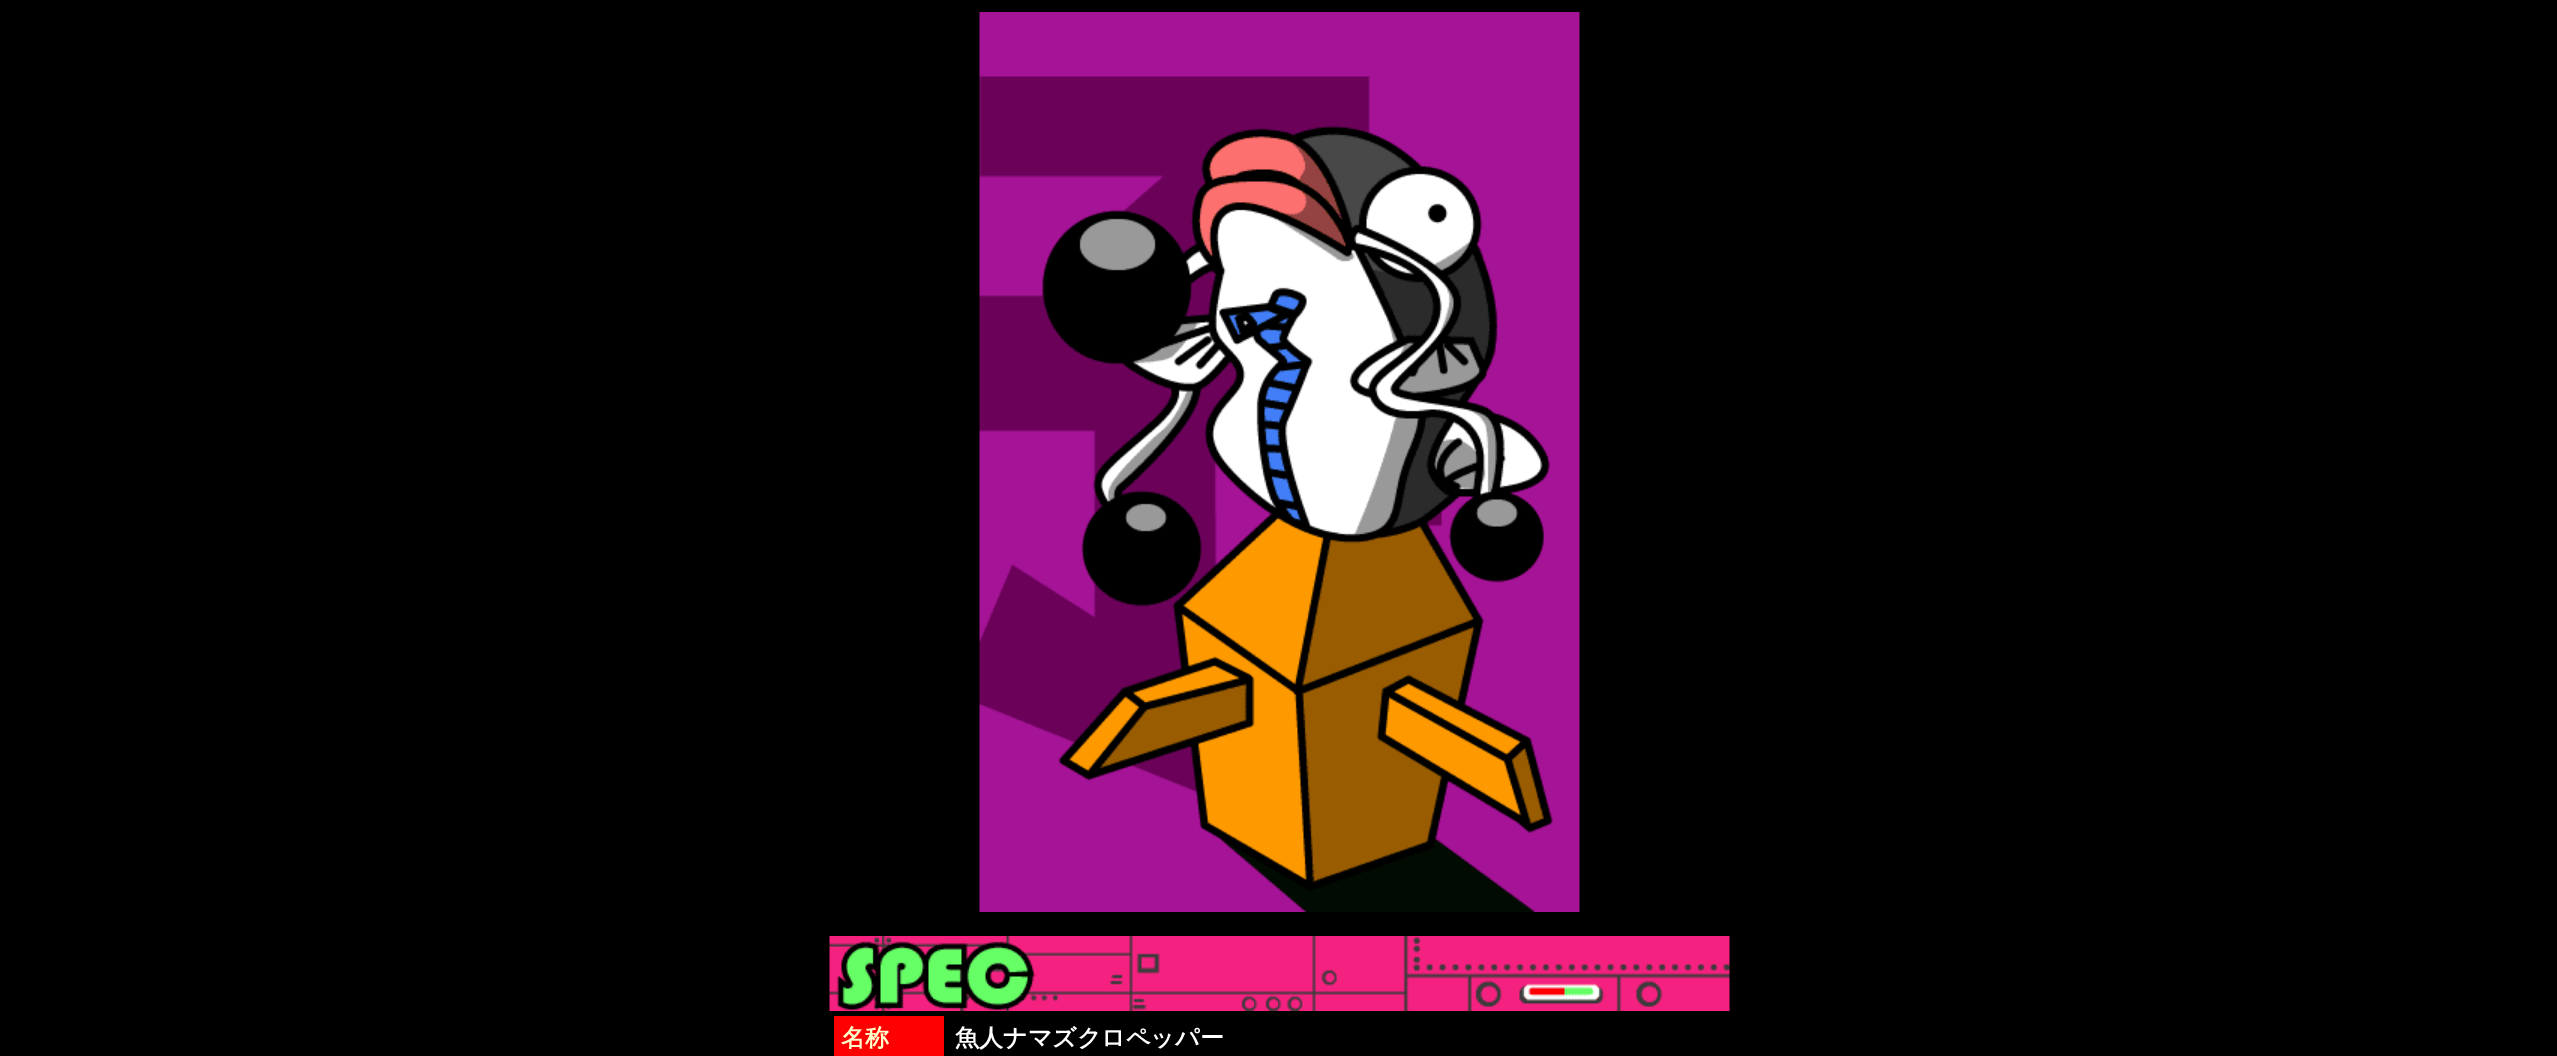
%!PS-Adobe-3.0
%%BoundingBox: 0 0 2557 1056
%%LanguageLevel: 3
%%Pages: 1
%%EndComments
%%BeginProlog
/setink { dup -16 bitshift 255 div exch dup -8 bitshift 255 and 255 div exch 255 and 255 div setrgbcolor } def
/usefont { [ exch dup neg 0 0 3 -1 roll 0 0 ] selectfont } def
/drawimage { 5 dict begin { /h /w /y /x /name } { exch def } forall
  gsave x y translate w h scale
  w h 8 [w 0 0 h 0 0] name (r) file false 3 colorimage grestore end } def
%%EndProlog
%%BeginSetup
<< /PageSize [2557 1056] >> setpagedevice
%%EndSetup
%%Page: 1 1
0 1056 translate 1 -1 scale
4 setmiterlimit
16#000000 setink
0 0 2557 1056 rectfill
(img1.raw) 979 12 601 900 drawimage
(img2.raw) 829 936 901 75 drawimage
16#FF0000 setink
834 1016 110 40 rectfill
/WenQuanYiZenHei-Bold 24 usefont
16#FFFFCC setink
841 1046 moveto (名称) show
16#FFFFFF setink
955 1046 moveto (魚人ナマズクロペッパー) show
showpage
%%EOF
